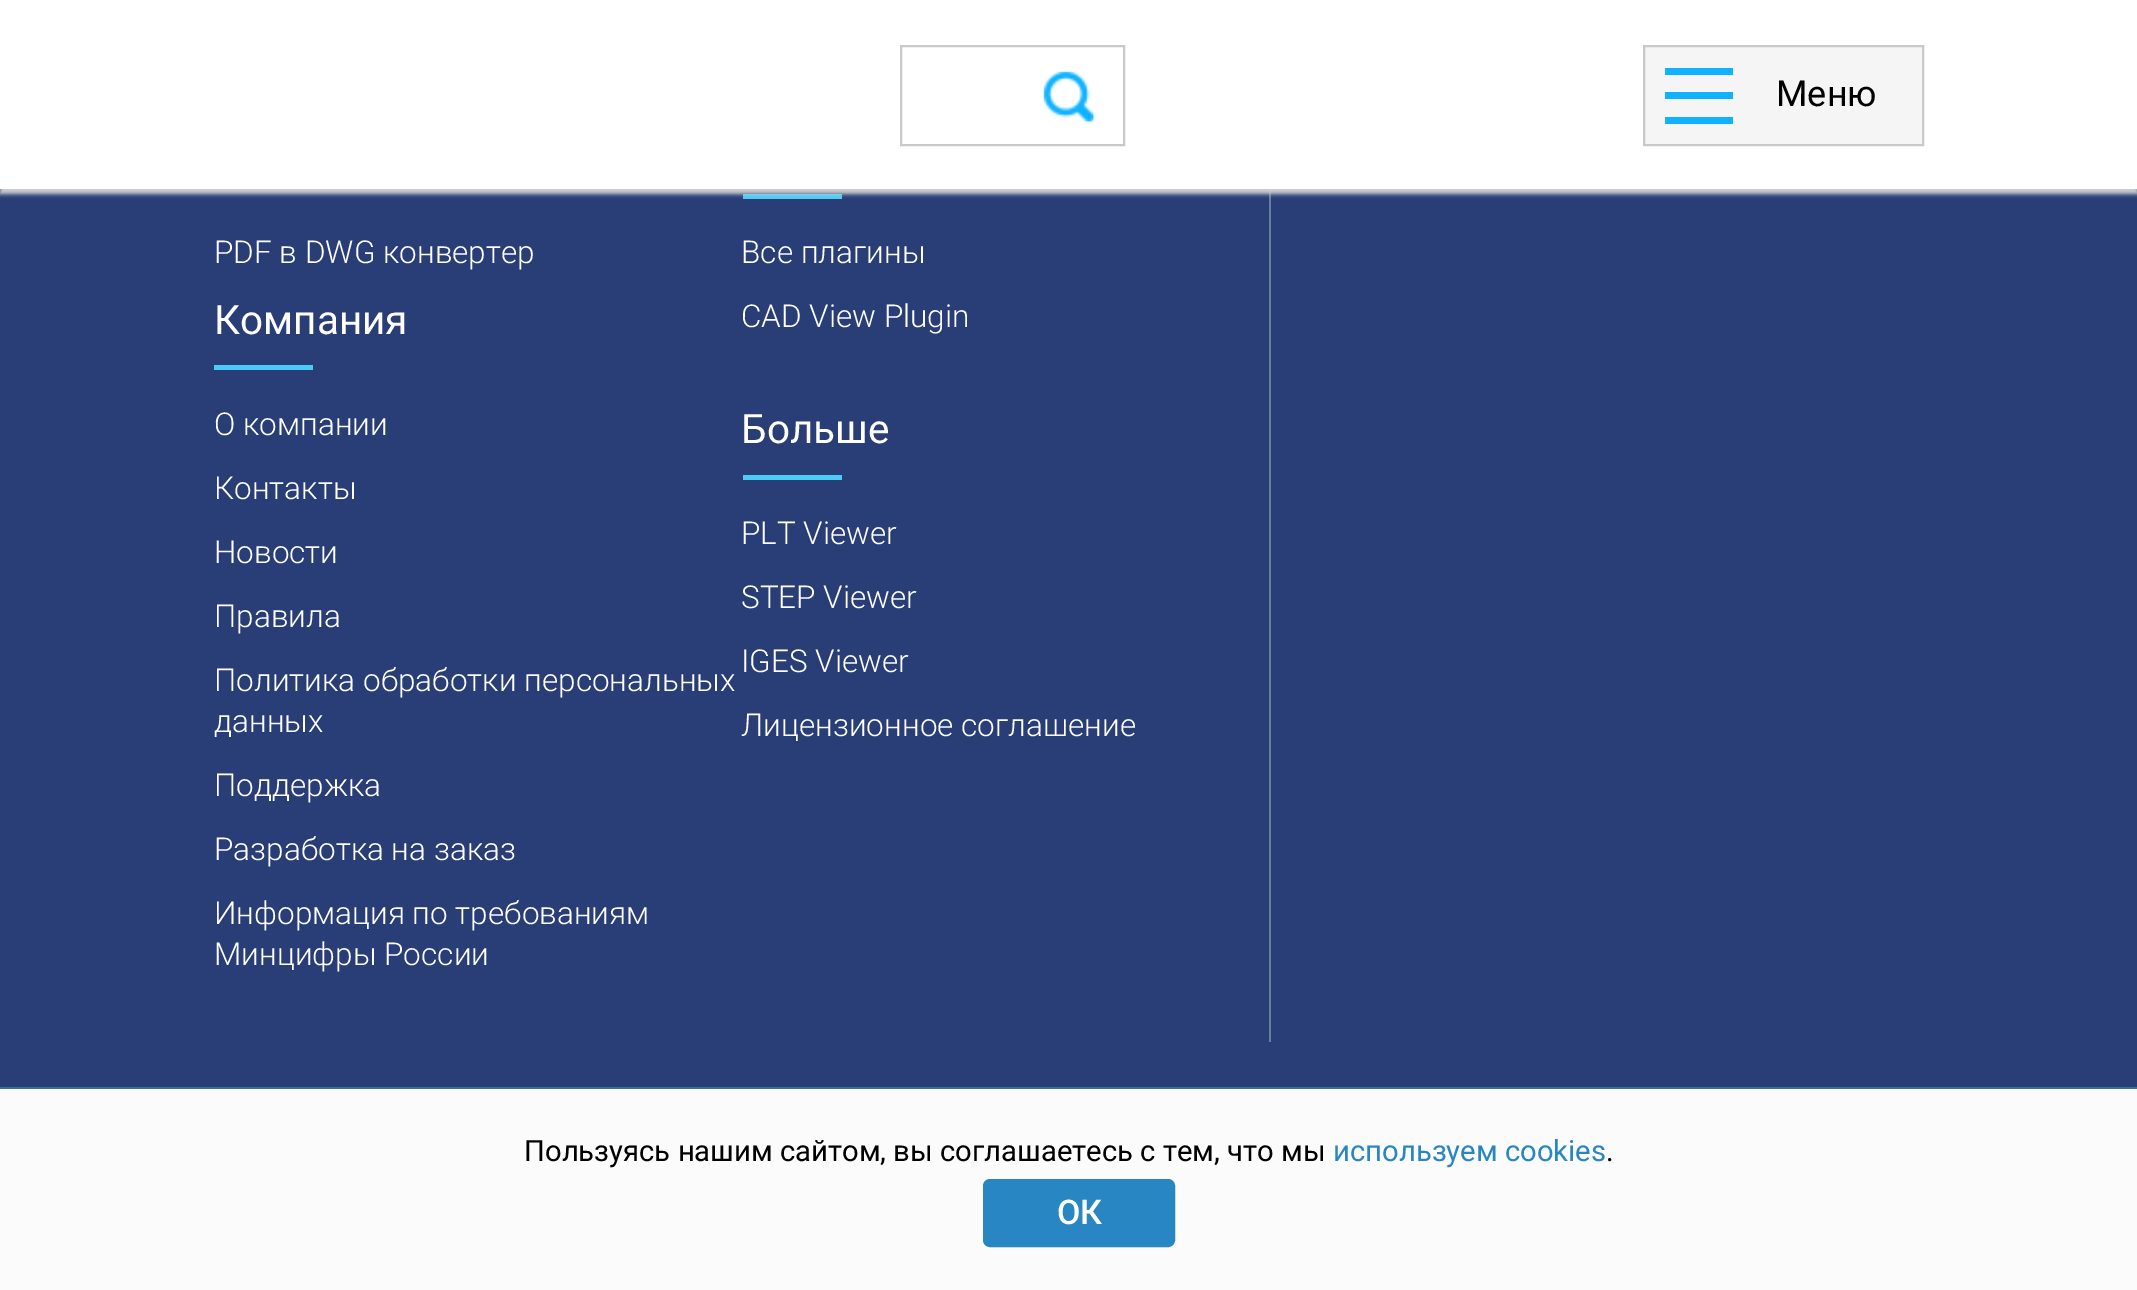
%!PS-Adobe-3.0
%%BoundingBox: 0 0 2137 1290
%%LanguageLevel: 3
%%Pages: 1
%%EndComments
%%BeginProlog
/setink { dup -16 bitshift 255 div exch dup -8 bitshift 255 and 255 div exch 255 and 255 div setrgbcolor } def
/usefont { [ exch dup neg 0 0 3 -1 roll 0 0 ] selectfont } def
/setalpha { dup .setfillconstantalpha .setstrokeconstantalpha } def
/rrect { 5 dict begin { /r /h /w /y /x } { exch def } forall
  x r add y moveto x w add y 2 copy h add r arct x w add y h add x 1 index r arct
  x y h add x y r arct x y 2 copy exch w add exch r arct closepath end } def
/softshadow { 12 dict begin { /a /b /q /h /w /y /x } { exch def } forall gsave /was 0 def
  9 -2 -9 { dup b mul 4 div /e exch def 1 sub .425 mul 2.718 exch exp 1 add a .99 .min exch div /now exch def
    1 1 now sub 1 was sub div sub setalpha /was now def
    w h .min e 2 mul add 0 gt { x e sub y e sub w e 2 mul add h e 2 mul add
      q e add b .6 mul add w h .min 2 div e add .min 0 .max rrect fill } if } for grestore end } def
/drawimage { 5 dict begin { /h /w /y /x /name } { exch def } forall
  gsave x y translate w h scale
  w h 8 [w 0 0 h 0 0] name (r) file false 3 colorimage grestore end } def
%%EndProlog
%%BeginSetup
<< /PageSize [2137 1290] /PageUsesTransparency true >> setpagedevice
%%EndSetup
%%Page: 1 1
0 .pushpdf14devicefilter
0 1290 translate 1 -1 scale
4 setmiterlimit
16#293E77 setink
0 0 2137 1290 rectfill
16#6081A5 setink
1269 189 2 853 rectfill
16#4BCBF5 setink
743 194 99 5 rectfill
16#D0D0D0 setink
0 5 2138 189 0 2 1 softshadow
16#FFFFFF setink
0 0 2137 189 rectfill
16#C9C9C9 setink
2 setlinewidth
901 46 223 99 rectstroke
(img1.raw) 1043 71 52 52 drawimage
16#F5F5F5 setink
1644 46 moveto 1923 46 lineto 1923 145 lineto 1644 145 lineto closepath gsave fill grestore
16#C9C9C9 setink
stroke
16#0FB2FF setink
1665 68 68 7 rectfill
1665 92 68 7 rectfill
/Roboto-Regular 36 usefont
16#000000 setink
1776 106 moveto (Меню) show
16#0FB2FF setink
1665 117 68 7 rectfill
16#FBFBFC setink
0 1089 2137 201 rectfill
/Roboto-Light 31.5 usefont
16#FFFFFF setink
[
    [(PDF в DWG конвертер) 214 263]
    [(Все плагины) 741 263]
    [(CAD View Plugin) 741 327]
] { aload pop moveto show } forall
/Roboto-Regular 40.5 usefont
741 443 moveto (Больше) show
16#4BCBF5 setink
743 475 99 5 rectfill
/Roboto-Light 31.5 usefont
16#FFFFFF setink
[
    [(PLT Viewer) 741 544]
    [(STEP Viewer) 741 608]
    [(IGES Viewer) 741 672]
    [(Лицензионное соглашение) 741 736]
] { aload pop moveto show } forall
/Roboto-Regular 40.5 usefont
214 334 moveto (Компания) show
16#4BCBF5 setink
214 365 99 5 rectfill
/Roboto-Light 31.5 usefont
16#FFFFFF setink
[
    [(О компании) 214 435]
    [(Контакты) 214 499]
    [(Новости) 214 563]
    [(Правила) 214 627]
    [(Политика обработки персональных) 214 691]
    [(данных) 214 732]
    [(Поддержка) 214 796]
    [(Разработка на заказ) 214 860]
    [(Информация по требованиям) 214 924]
    [(Минцифры России) 214 965]
] { aload pop moveto show } forall
16#3A6DA1 setink
0 1087 2137 2 rectfill
/Roboto-Regular 29.25 usefont
16#000000 setink
524 1161 moveto (Пользуясь нашим сайтом, вы соглашаетесь с тем, что мы) show
16#2886C3 setink
1333 1161 moveto (используем cookies) show
16#000000 setink
1606 1161 moveto (.) show
16#2886C3 setink
985.5 1181.5 187 63 4.5 rrect gsave fill grestore
5 setlinewidth
stroke
/Roboto-Medium 34 usefont
16#FFFFFF setink
1057 1224 moveto (ОК) show
.poppdf14devicefilter showpage
%%EOF
